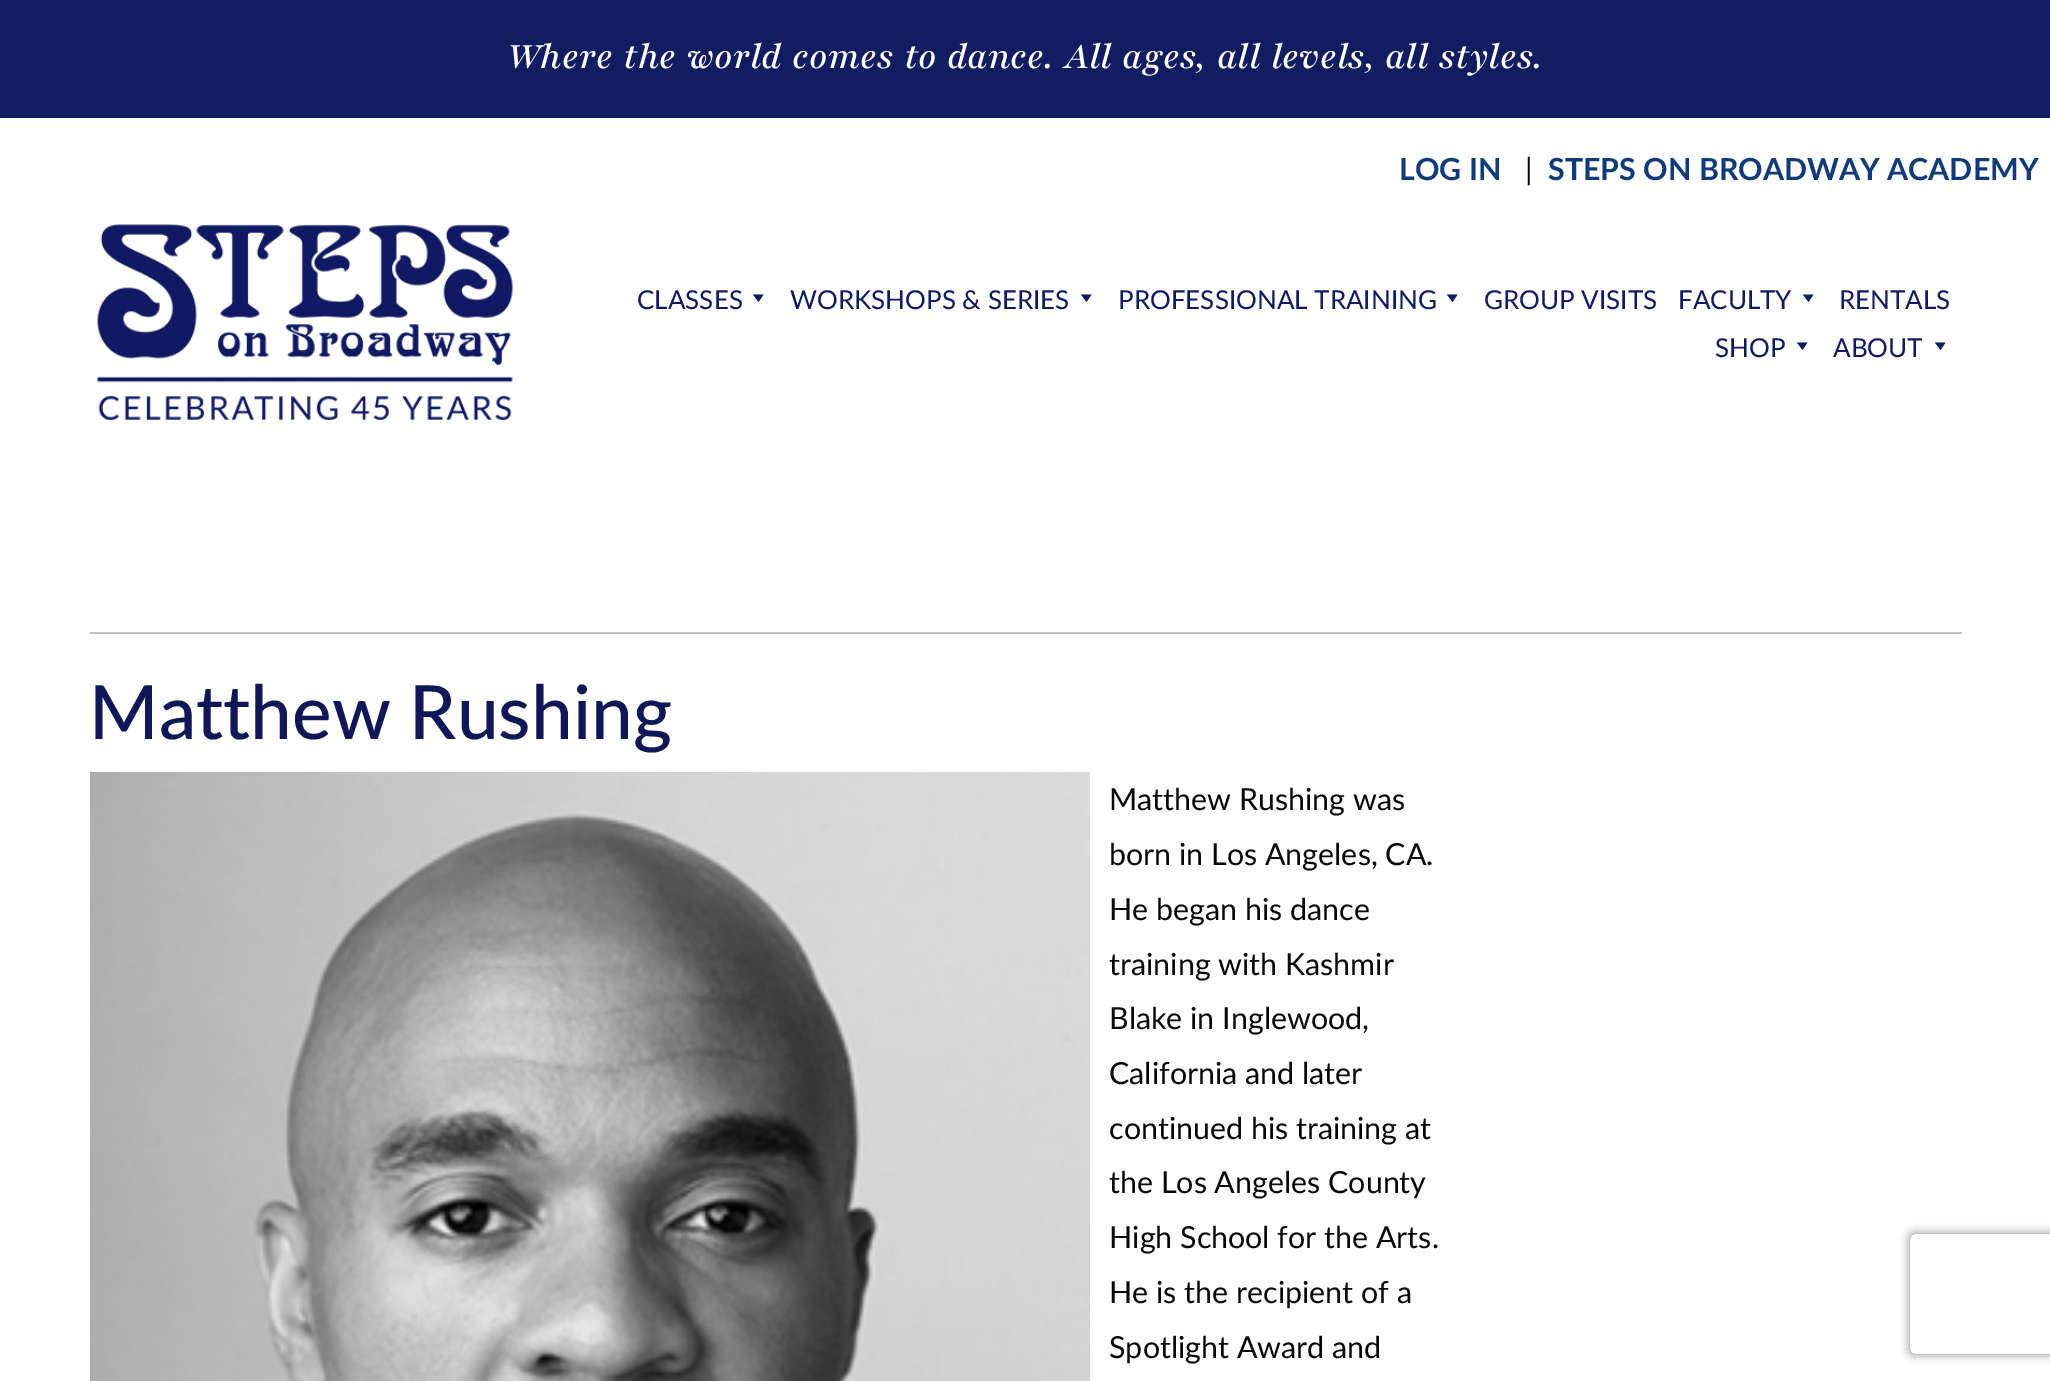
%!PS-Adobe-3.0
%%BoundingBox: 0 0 2050 1381
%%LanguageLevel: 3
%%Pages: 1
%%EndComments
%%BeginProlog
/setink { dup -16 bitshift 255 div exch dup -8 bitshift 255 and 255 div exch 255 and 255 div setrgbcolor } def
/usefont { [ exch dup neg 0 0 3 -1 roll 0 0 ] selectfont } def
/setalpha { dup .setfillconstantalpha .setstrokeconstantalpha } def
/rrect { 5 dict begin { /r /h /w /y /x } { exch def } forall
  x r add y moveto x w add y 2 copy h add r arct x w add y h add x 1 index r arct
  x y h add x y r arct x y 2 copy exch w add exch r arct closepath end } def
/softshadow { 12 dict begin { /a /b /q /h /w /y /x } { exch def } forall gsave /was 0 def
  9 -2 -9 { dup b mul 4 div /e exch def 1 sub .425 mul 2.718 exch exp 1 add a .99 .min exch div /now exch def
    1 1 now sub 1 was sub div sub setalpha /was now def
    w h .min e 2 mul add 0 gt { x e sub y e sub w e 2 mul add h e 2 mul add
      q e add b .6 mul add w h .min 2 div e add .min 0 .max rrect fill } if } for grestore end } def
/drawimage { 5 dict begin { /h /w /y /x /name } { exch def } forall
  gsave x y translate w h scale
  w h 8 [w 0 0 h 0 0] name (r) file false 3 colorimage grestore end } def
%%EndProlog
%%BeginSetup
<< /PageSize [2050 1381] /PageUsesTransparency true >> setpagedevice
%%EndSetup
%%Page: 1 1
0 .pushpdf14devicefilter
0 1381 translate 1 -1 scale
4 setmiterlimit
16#FFFFFF setink
0 0 2050 1381 rectfill
16#111C61 setink
0 0 2050 118 rectfill
/Playfair-MediumItalic 40 usefont
16#FFFFFF setink
507 68 moveto 2 0 32 (Where the world comes to dance. All ages, all levels, all styles.) widthshow
/Lato-Bold 30.4 usefont
16#113A78 setink
1399 180 moveto (LOG IN) show
/Lato-Regular 30.4 usefont
16#070707 setink
1525 180 moveto (|) show
/Lato-Bold 30.4 usefont
16#113A78 setink
1548 180 moveto (STEPS ON BROADWAY ACADEMY) show
(img1.raw) 97 224 416 196 drawimage
/Lato-Regular 26 usefont
16#101962 setink
637 309 moveto (CLASSES) show
763.5 294.5 moveto 758.5 302 lineto 753 294.5 lineto closepath fill
790 309 moveto (WORKSHOPS & SERIES) show
1091.5 294.5 moveto 1086.5 302 lineto 1081 294.5 lineto closepath fill
1118 309 moveto (PROFESSIONAL TRAINING) show
1457.5 294.5 moveto 1452.5 302 lineto 1447 294.5 lineto closepath fill
1484 309 moveto (GROUP VISITS) show
1678 309 moveto (FACULTY) show
1813.5 294.5 moveto 1808.5 302 lineto 1803 294.5 lineto closepath fill
1839 309 moveto (RENTALS) show
1715 357 moveto (SHOP) show
1807.5 342.5 moveto 1802.5 350 lineto 1797 342.5 lineto closepath fill
1833 357 moveto (ABOUT) show
1945.5 342.5 moveto 1940.5 350 lineto 1935 342.5 lineto closepath fill
16#C1C1C1 setink
90 632 1872 2 rectfill
/Lato-Medium 74.75 usefont
16#111756 setink
89 739 moveto (Matthew Rushing) show
(img2.raw) 90 772 1000 609 drawimage
/Lato-Regular 30.4 usefont
16#070707 setink
[
    [(Matthew Rushing was) 1109 810]
    [(born in Los Angeles, CA.) 1109 865]
    [(He began his dance) 1109 920]
    [(training with Kashmir) 1109 975]
    [(Blake in Inglewood,) 1109 1029]
    [(California and later) 1109 1084]
    [(continued his training at) 1109 1139]
    [(the Los Angeles County) 1109 1193]
    [(High School for the Arts.) 1109 1248]
    [(He is the recipient of a) 1109 1303]
    [(Spotlight Award and) 1109 1358]
] { aload pop moveto show } forall
gsave
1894 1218 moveto 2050 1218 lineto 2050 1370 lineto 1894 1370 lineto closepath 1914 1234 moveto 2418 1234 lineto 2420 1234 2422 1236 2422 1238 curveto 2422 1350 lineto 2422 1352 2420 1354 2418 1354 curveto 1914 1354 lineto 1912 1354 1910 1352 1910 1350 curveto 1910 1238 lineto 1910 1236 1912 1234 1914 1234 curveto closepath eoclip newpath
16#808080 setink
1910 1234 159 120 4 5 1 softshadow
grestore
.poppdf14devicefilter showpage
%%EOF
